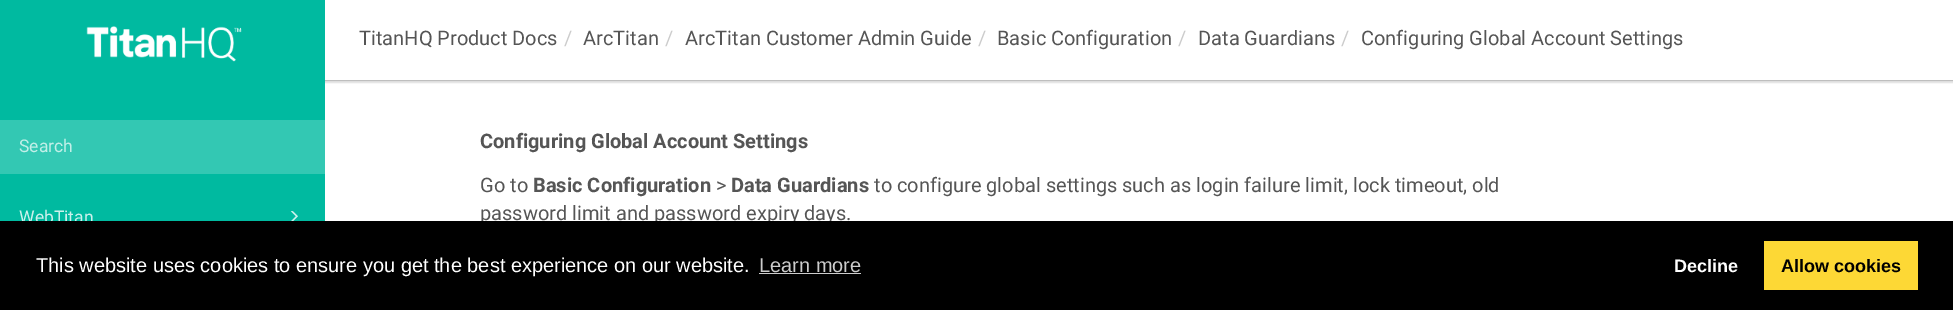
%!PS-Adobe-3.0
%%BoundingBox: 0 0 1953 310
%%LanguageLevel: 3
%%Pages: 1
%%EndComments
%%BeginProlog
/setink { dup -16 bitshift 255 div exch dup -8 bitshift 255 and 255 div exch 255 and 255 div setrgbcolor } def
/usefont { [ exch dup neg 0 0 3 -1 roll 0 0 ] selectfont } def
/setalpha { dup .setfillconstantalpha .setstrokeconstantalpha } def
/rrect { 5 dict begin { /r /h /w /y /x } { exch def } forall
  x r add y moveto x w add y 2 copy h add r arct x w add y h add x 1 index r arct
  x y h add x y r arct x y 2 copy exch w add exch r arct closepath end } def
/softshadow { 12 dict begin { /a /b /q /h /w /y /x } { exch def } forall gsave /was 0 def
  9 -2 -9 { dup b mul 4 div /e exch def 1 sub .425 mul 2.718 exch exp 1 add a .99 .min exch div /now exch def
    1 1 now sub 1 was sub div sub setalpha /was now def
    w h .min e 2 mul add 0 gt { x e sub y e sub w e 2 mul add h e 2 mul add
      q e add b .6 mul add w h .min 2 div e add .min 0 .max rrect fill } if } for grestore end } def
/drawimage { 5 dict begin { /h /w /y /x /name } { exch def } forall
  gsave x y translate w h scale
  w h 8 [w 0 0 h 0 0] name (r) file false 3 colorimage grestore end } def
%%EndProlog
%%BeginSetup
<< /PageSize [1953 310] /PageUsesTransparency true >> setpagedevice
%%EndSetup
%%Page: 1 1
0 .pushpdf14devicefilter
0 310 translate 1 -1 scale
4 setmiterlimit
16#FFFFFF setink
0 0 1953 310 rectfill
gsave
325 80 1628 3 rectclip
16#000000 setink
-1 -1 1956 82 0 3 0.08 softshadow
grestore
gsave
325 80 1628 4 rectclip
16#000000 setink
-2 -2 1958 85 0 1 0.1 softshadow
grestore
gsave
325 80 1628 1 rectclip
16#000000 setink
-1 -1 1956 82 0 0.5 0.14 softshadow
grestore
16#00BAA0 setink
0 0 325 221 rectfill
(img1.raw) 86 26 156 36 drawimage
16#33C8B3 setink
0 120 325 54 rectfill
/Roboto-Regular 17.5 usefont
16#C2EFE8 setink
19 152 moveto (Search) show
16#CCF1EC setink
19 223 moveto (WebTitan) show
(img2.raw) 290 211 8 10 drawimage
/Roboto-Regular 20 usefont
16#555555 setink
359 45 moveto (TitanHQ Product Docs) show
16#CCCCCC setink
564 45 moveto (/) show
16#555555 setink
583 45 moveto (ArcTitan) show
16#CCCCCC setink
665 45 moveto (/) show
16#555555 setink
685 45 moveto (ArcTitan Customer Admin Guide) show
16#CCCCCC setink
978 45 moveto (/) show
16#555555 setink
997 45 moveto (Basic Configuration) show
16#CCCCCC setink
1178 45 moveto (/) show
16#555555 setink
1198 45 moveto (Data Guardians) show
16#CCCCCC setink
1341 45 moveto (/) show
16#555555 setink
1361 45 moveto (Configuring Global Account Settings) show
/Roboto-Bold 20 usefont
480 148 moveto (Configuring Global Account Settings) show
/Roboto-Regular 20 usefont
480 192 moveto (Go to) show
/Roboto-Bold 20 usefont
533 192 moveto (Basic Configuration) show
/Roboto-Regular 20 usefont
716 192 moveto (>) show
/Roboto-Bold 20 usefont
731 192 moveto (Data Guardians) show
/Roboto-Regular 20 usefont
874 192 moveto (to configure global settings such as login failure limit, lock timeout, old) show
480 220 moveto (password limit and password expiry days.) show
16#000000 setink
0 221 1953 89 rectfill
/LiberationSans-Regular 20 usefont
16#FFFFFF setink
36 272 moveto (This website uses cookies to ensure you get the best experience on our website.) show
16#CCCCCC setink
759 272 moveto (Learn more) show
759 273 102 1 rectfill
/LiberationSans-Bold 18 usefont
16#FFFFFF setink
1674 272 moveto (Decline) show
16#FDD835 setink
1764 241 154 49 rectfill
16#000000 setink
1781 272 moveto (Allow cookies) show
.poppdf14devicefilter showpage
%%EOF
